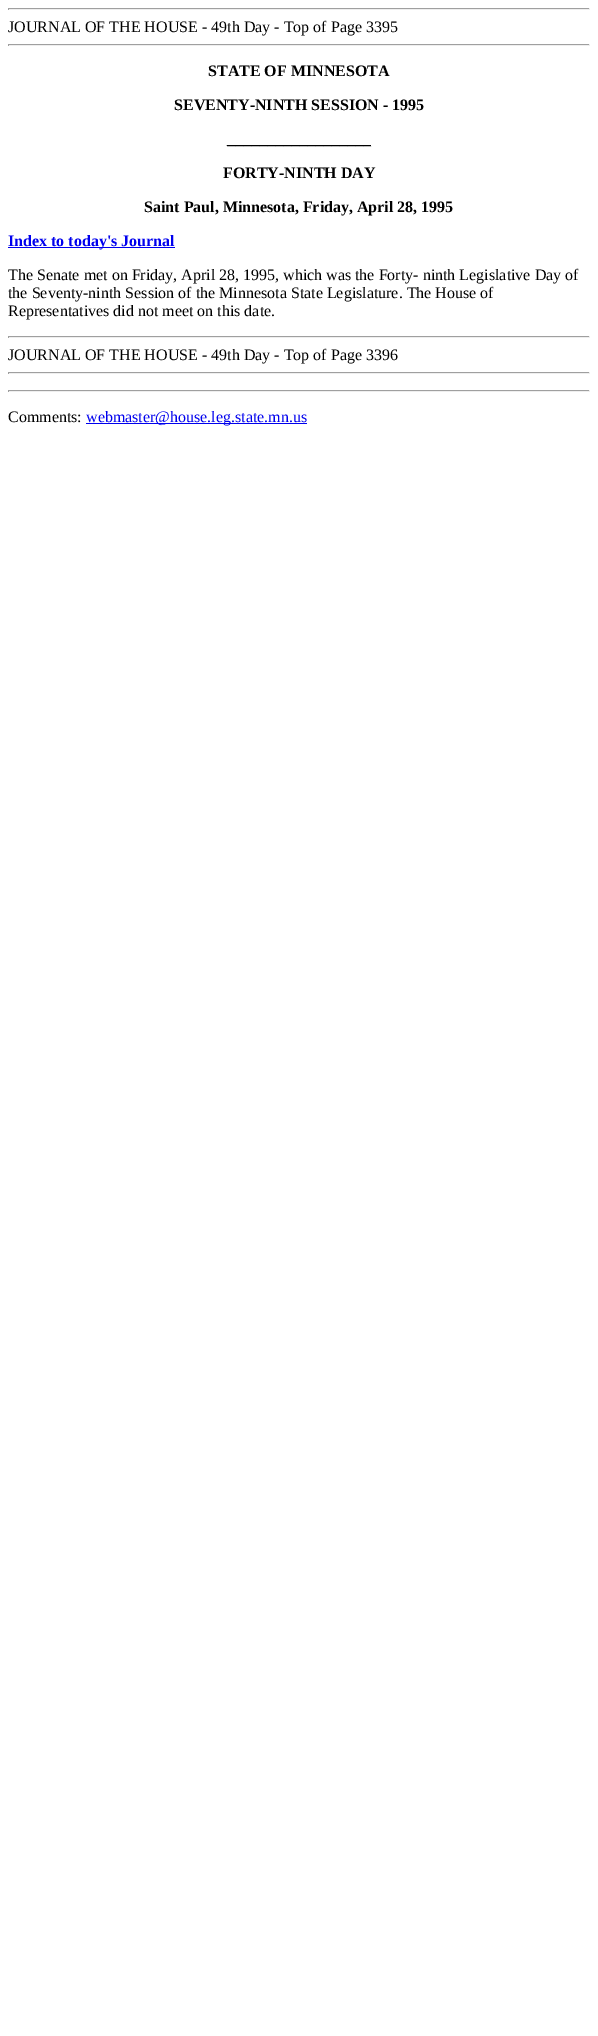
%!PS-Adobe-3.0
%%BoundingBox: 0 0 598 2036
%%LanguageLevel: 3
%%Pages: 1
%%EndComments
%%BeginProlog
/setink { dup -16 bitshift 255 div exch dup -8 bitshift 255 and 255 div exch 255 and 255 div setrgbcolor } def
/usefont { [ exch dup neg 0 0 3 -1 roll 0 0 ] selectfont } def
%%EndProlog
%%BeginSetup
<< /PageSize [598 2036] >> setpagedevice
%%EndSetup
%%Page: 1 1
0 2036 translate 1 -1 scale
4 setmiterlimit
16#FFFFFF setink
0 0 598 2036 rectfill
[
    [8 8 582 1 16#9F9F9F]
    [589 8 1 2 16#EEEEEE]
    [8 9 582 1 16#EEEEEE]
    [8 8 1 2 16#9F9F9F]
] { aload pop setink rectfill } forall
/LiberationSerif-Regular 16 usefont
16#000000 setink
8 32 moveto (JOURNAL OF THE HOUSE - 49th Day - Top of Page 3395) show
[
    [8 44 582 1 16#9F9F9F]
    [589 44 1 2 16#EEEEEE]
    [8 45 582 1 16#EEEEEE]
    [8 44 1 2 16#9F9F9F]
] { aload pop setink rectfill } forall
/LiberationSerif-Bold 16 usefont
16#000000 setink
[
    [(STATE OF MINNESOTA) 208 76]
    [(SEVENTY-NINTH SESSION - 1995) 174 110]
    [(__________________) 227 144]
    [(FORTY-NINTH DAY) 223 178]
    [(Saint Paul, Minnesota, Friday, April 28, 1995) 144 212]
] { aload pop moveto show } forall
16#0000EE setink
8 247 167 1 rectfill
8 246 moveto (Index to today's Journal) show
/LiberationSerif-Regular 16 usefont
16#000000 setink
[
    [(The Senate met on Friday, April 28, 1995, which was the Forty- ninth Legislative Day of) 8 280]
    [(the Seventy-ninth Session of the Minnesota State Legislature. The House of) 8 298]
    [(Representatives did not meet on this date.) 8 316]
] { aload pop moveto show } forall
[
    [8 336 582 1 16#9F9F9F]
    [589 336 1 2 16#EEEEEE]
    [8 337 582 1 16#EEEEEE]
    [8 336 1 2 16#9F9F9F]
] { aload pop setink rectfill } forall
16#000000 setink
8 360 moveto (JOURNAL OF THE HOUSE - 49th Day - Top of Page 3396) show
[
    [8 372 582 1 16#9F9F9F]
    [589 372 1 2 16#EEEEEE]
    [8 373 582 1 16#EEEEEE]
    [8 372 1 2 16#9F9F9F]
    [8 390 582 1 16#9F9F9F]
    [589 390 1 2 16#EEEEEE]
    [8 391 582 1 16#EEEEEE]
    [8 390 1 2 16#9F9F9F]
] { aload pop setink rectfill } forall
16#000000 setink
8 422 moveto (Comments:) show
16#0000EE setink
86 423 221 1 rectfill
86 422 moveto (webmaster@house.leg.state.mn.us) show
showpage
%%EOF
